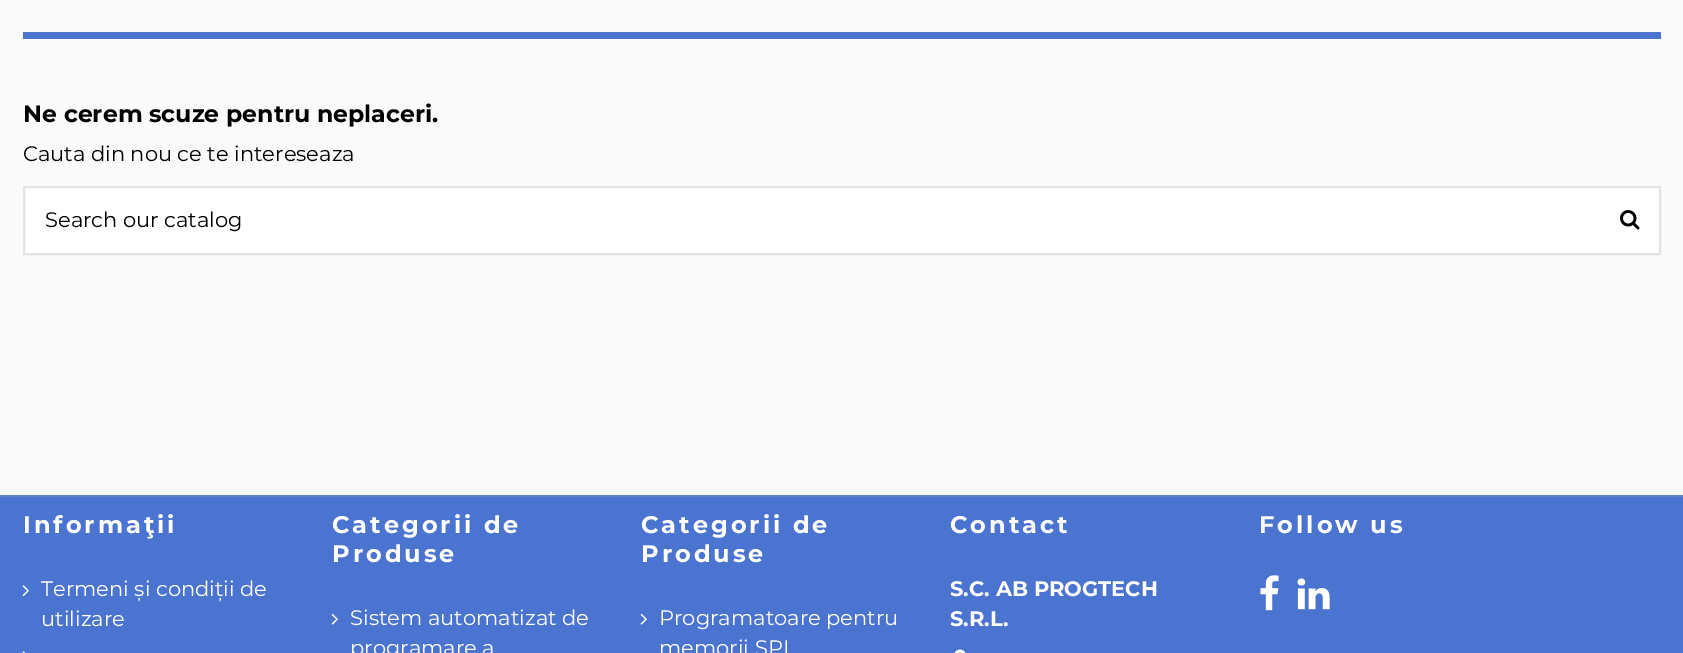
%!PS-Adobe-3.0
%%BoundingBox: 0 0 1683 653
%%LanguageLevel: 3
%%Pages: 1
%%EndComments
%%BeginProlog
/setink { dup -16 bitshift 255 div exch dup -8 bitshift 255 and 255 div exch 255 and 255 div setrgbcolor } def
/usefont { [ exch dup neg 0 0 3 -1 roll 0 0 ] selectfont } def
/drawimage { 5 dict begin { /h /w /y /x /name } { exch def } forall
  gsave x y translate w h scale
  w h 8 [w 0 0 h 0 0] name (r) file false 3 colorimage grestore end } def
%%EndProlog
%%BeginSetup
<< /PageSize [1683 653] >> setpagedevice
%%EndSetup
%%Page: 1 1
0 653 translate 1 -1 scale
4 setmiterlimit
16#FAFAFA setink
0 0 1683 653 rectfill
16#4B73D0 setink
23 32 1638 7 rectfill
/Montserrat-Bold 23.6 usefont
16#000000 setink
23 122 moveto (Ne cerem scuze pentru neplaceri.) show
/Montserrat-Regular 21 usefont
23 161 moveto (Cauta din nou ce te intereseaza) show
16#FFFFFF setink
24 187 moveto 1660 187 lineto 1660 254 lineto 24 254 lineto closepath gsave fill grestore
16#E3E3E3 setink
2 setlinewidth
stroke
16#000000 setink
45 227 moveto (Search our catalog) show
(img1.raw) 1620 210 20 20 drawimage
16#4B73D0 setink
0 497 1683 156 rectfill
16#617FC4 setink
0 495 1683 2 rectfill
/Montserrat-Bold 24 usefont
16#FFFFFF setink
23 533 moveto 3 0 (Informaţii) ashow
(img2.raw) 22 585 7 12 drawimage
/Montserrat-Regular 21 usefont
41 596 moveto (Termeni și condiții de) show
41 626 moveto (utilizare) show
(img3.raw) 22 651 4 2 drawimage
/Montserrat-Bold 24 usefont
332 533 moveto 3 0 (Categorii de) ashow
332 562 moveto 3 0 (Produse) ashow
(img4.raw) 331 613 7 12 drawimage
/Montserrat-Regular 21 usefont
350 625 moveto (Sistem automatizat de) show
350 655 moveto (programare a) show
/Montserrat-Bold 24 usefont
641 533 moveto 3 0 (Categorii de) ashow
641 562 moveto 3 0 (Produse) ashow
(img4.raw) 640 613 7 12 drawimage
/Montserrat-Regular 21 usefont
659 625 moveto (Programatoare pentru) show
659 655 moveto (memorii SPI) show
/Montserrat-Bold 24 usefont
950 533 moveto 3 0 (Contact) ashow
/Montserrat-Bold 21 usefont
950 596 moveto (S.C. AB PROGTECH) show
950 626 moveto (S.R.L.) show
(img5.raw) 954 649 12 4 drawimage
/Montserrat-Bold 24 usefont
1259 533 moveto 3 0 (Follow us) ashow
(img6.raw) 1260 575 19 36 drawimage
(img7.raw) 1297 578 33 32 drawimage
showpage
%%EOF
